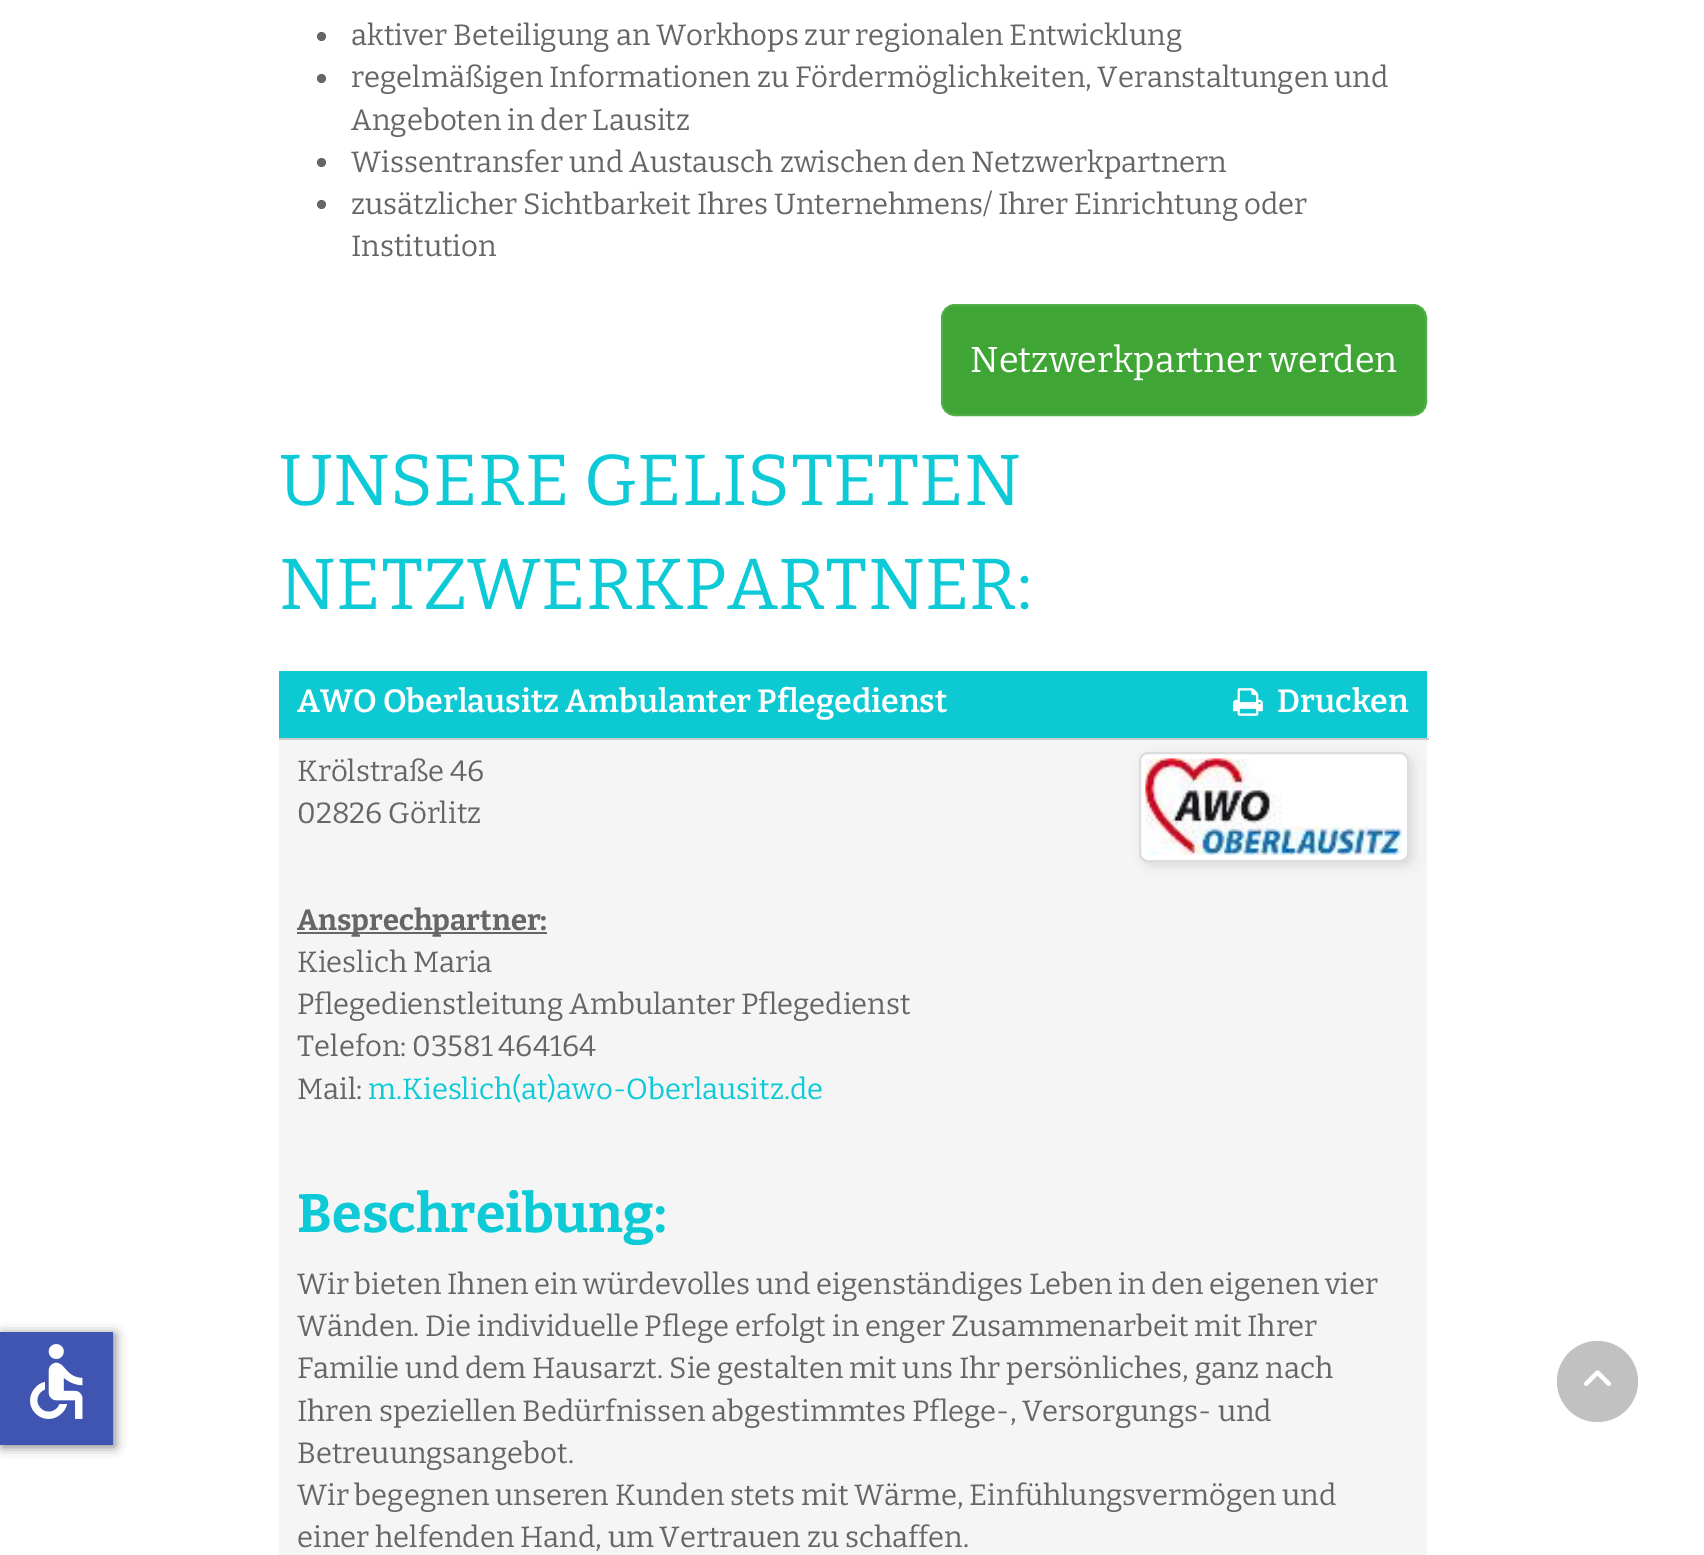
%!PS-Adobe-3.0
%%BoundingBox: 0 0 1704 1555
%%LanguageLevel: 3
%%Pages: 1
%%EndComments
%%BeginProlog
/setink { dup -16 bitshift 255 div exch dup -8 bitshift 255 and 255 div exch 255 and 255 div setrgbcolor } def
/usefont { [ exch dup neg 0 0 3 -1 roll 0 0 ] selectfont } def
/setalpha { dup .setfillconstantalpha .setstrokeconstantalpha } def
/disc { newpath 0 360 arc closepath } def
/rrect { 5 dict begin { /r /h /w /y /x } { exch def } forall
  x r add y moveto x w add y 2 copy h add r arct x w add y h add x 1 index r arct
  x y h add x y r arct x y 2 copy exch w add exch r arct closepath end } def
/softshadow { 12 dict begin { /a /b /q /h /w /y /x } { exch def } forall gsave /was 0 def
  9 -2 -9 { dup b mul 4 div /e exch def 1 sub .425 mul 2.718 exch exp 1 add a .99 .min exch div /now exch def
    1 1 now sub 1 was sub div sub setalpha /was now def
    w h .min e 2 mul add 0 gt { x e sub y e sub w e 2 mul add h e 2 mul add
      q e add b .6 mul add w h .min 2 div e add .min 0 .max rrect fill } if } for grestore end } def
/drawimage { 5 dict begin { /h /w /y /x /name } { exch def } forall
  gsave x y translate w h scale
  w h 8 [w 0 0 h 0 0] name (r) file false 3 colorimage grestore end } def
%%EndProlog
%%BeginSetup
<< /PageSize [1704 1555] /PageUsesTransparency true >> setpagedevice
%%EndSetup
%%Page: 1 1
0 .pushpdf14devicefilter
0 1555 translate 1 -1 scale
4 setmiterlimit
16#FFFFFF setink
0 0 1704 1555 rectfill
16#000000 setink
2 1334 113 113 0 5.5 0.5 softshadow
16#4054B2 setink
0 1332 113 113 rectfill
(img1.raw) 30 1344 53 75 drawimage
16#666666 setink
321.5 36.5 4.5 disc fill
/Bitter-Thin 29.25 usefont
351 45 moveto (aktiver Beteiligung an Workhops zur regionalen Entwicklung) show
321.5 78.5 4.5 disc fill
351 87 moveto (regelmäßigen Informationen zu Fördermöglichkeiten, Veranstaltungen und) show
351 130 moveto (Angeboten in der Lausitz) show
321.5 162.5 4.5 disc fill
351 172 moveto (Wissentransfer und Austausch zwischen den Netzwerkpartnern) show
321.5 204.5 4.5 disc fill
351 214 moveto (zusätzlicher Sichtbarkeit Ihres Unternehmens/ Ihrer Einrichtung oder) show
351 256 moveto (Institution) show
16#3FA535 setink
942 305 484 110 13 rrect gsave fill grestore
16#50AF47 setink
2 setlinewidth
stroke
/Bitter-Thin 36 usefont
16#FFFFFF setink
970 372 moveto (Netzwerkpartner werden) show
/Bitter-Thin 72 usefont
16#0DCAD6 setink
279 505 moveto (UNSERE GELISTETEN) show
279 609 moveto (NETZWERKPARTNER:) show
16#0DCAD2 setink
279 671 1148 67 rectfill
16#CCCCCC setink
279 738 1150 2 rectfill
/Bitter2-Thin 32.2 usefont
16#FFFFFF setink
297 712 moveto (AWO Oberlausitz Ambulanter Pflegedienst) show
(img2.raw) 1233 688 30 28 drawimage
1277 712 moveto (Drucken) show
16#F5F5F5 setink
279 740 1148 815 rectfill
16#000000 setink
1143 756 270 110 9 5.5 0.11 softshadow
16#FFFFFF setink
1140 753 268 108 8 rrect gsave fill grestore
16#DDDDDD setink
stroke
(img3.raw) 1145 758 257 97 drawimage
/Bitter-Thin 29.25 usefont
16#666666 setink
297 781 moveto (Krölstraße 46) show
297 823 moveto (02826 Görlitz) show
297 932 250 2 rectfill
/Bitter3-Thin 29.25 usefont
297 930 moveto (Ansprechpartner:) show
/Bitter-Thin 29.25 usefont
[
    [(Kieslich Maria) 297 972]
    [(Pflegedienstleitung Ambulanter Pflegedienst) 297 1014]
    [(Telefon: 03581 464164) 297 1056]
    [(Mail:) 297 1099]
] { aload pop moveto show } forall
16#0DCAD6 setink
368 1099 moveto (m.Kieslich\(at\)awo-Oberlausitz.de) show
/Bitter3-Thin 54 usefont
297 1232 moveto (Beschreibung:) show
/Bitter-Thin 29.25 usefont
16#666666 setink
[
    [(Wir bieten Ihnen ein würdevolles und eigenständiges Leben in den eigenen vier) 297 1294]
    [(Wänden. Die individuelle Pflege erfolgt in enger Zusammenarbeit mit Ihrer) 297 1336]
    [(Familie und dem Hausarzt. Sie gestalten mit uns Ihr persönliches, ganz nach) 297 1378]
    [(Ihren speziellen Bedürfnissen abgestimmtes Pflege-, Versorgungs- und) 297 1421]
    [(Betreuungsangebot.) 297 1463]
    [(Wir begegnen unseren Kunden stets mit Wärme, Einfühlungsvermögen und) 297 1505]
    [(einer helfenden Hand, um Vertrauen zu schaffen.) 297 1547]
] { aload pop moveto show } forall
16#C1C1C1 setink
1597.5 1381.5 40.5 disc fill
(img4.raw) 1584 1370 27 16 drawimage
.poppdf14devicefilter showpage
%%EOF
